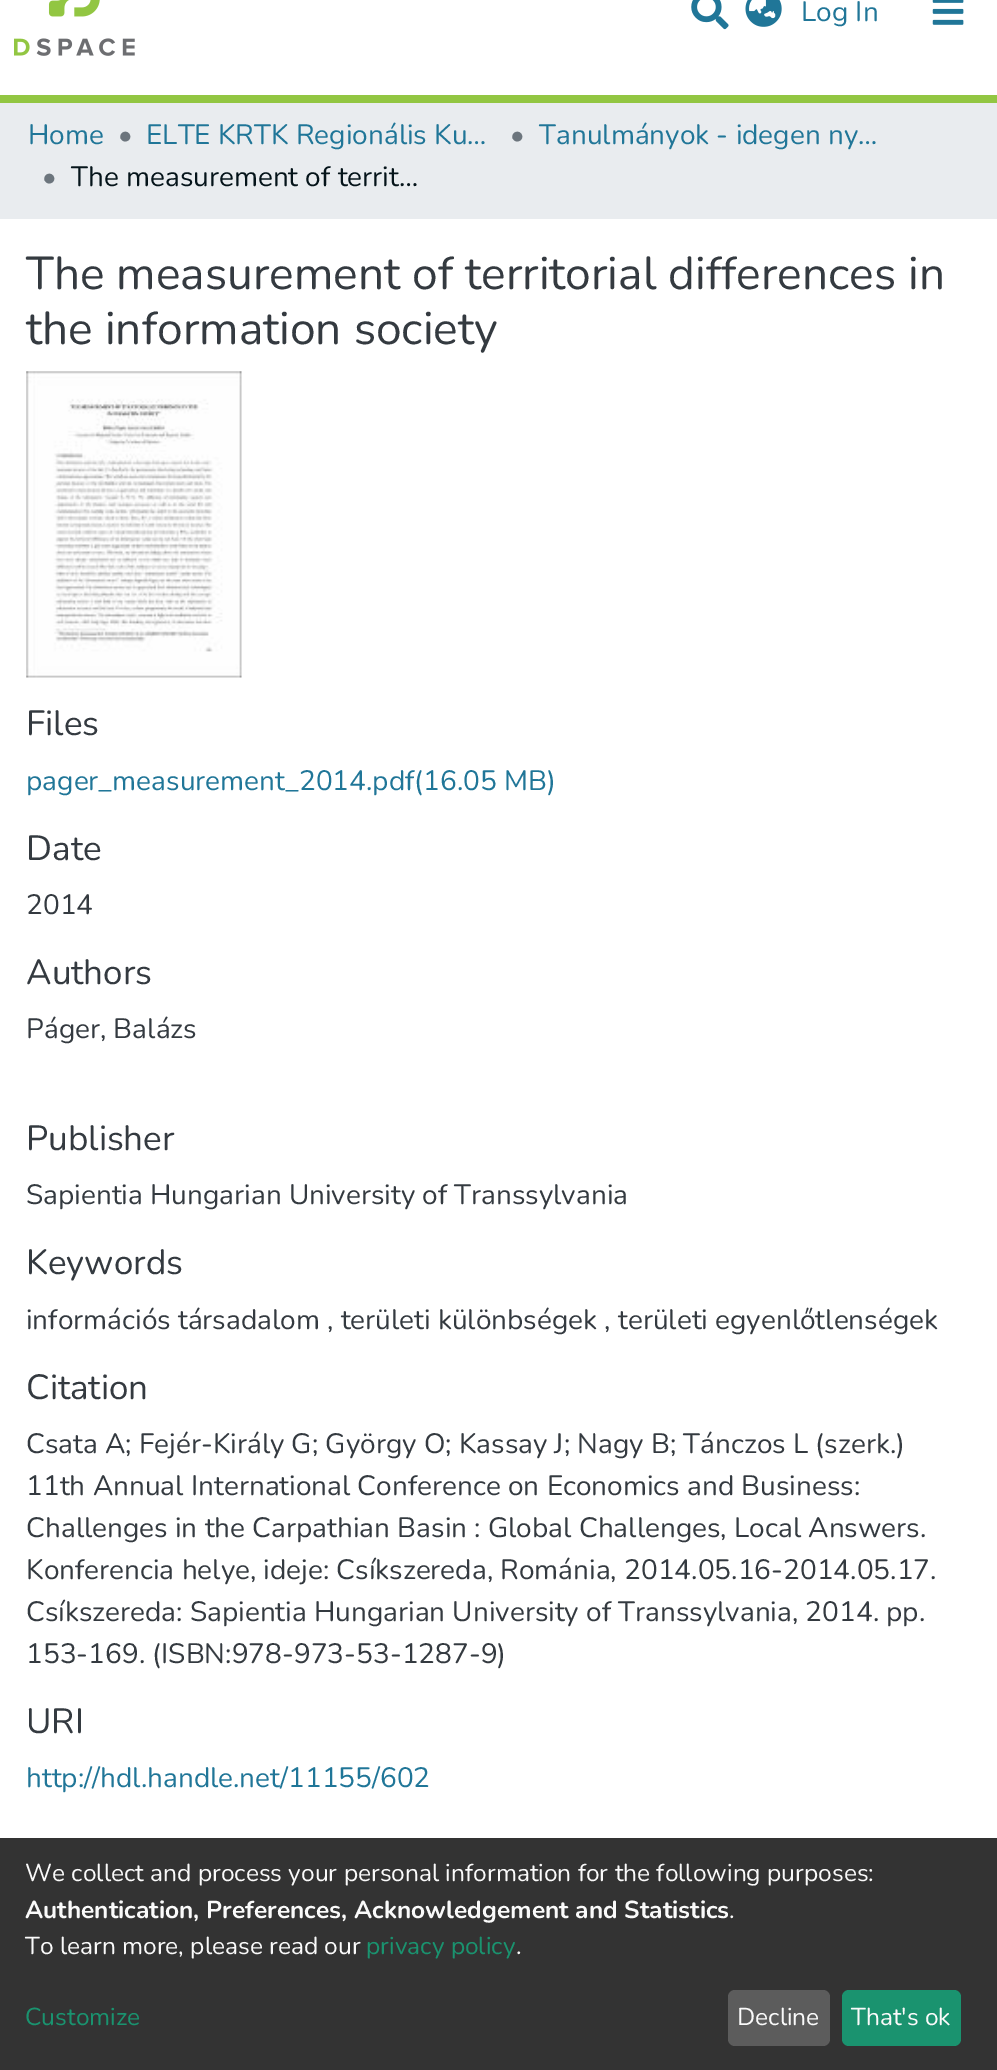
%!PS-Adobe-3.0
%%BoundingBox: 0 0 997 2070
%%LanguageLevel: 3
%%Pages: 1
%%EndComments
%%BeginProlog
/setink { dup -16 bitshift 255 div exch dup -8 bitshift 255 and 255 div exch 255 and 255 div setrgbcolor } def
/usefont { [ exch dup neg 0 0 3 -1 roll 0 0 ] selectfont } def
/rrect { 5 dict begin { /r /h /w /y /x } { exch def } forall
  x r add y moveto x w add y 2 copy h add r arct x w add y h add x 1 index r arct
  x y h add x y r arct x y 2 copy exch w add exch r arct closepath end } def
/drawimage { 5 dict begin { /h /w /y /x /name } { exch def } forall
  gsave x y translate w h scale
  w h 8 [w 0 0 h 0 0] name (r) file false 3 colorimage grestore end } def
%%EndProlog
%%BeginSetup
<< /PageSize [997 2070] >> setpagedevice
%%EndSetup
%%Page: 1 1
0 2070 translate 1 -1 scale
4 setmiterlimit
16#FFFFFF setink
0 0 997 2070 rectfill
(img1.raw) 14 0 121 56 drawimage
(img2.raw) 691 0 38 30 drawimage
(img3.raw) 745 0 37 27 drawimage
/Nunito-Regular 28 usefont
16#207698 setink
801 21 moveto (Log In) show
(img4.raw) 932 0 32 25 drawimage
16#92C642 setink
0 95 997 8 rectfill
16#E9ECEF setink
0 103 997 116 rectfill
16#207698 setink
28 144 moveto (Home) show
16#6C757D setink
118 144 moveto (•) show
16#207698 setink
146 144 moveto (ELTE KRTK Regionális Ku…) show
16#6C757D setink
510 144 moveto (•) show
16#207698 setink
539 144 moveto (Tanulmányok - idegen ny…) show
16#6C757D setink
42 186 moveto (•) show
16#05141A setink
71 186 moveto (The measurement of territ…) show
/Nunito-Regular 46.1 usefont
16#343A40 setink
26 289 moveto (The measurement of territorial differences in) show
26 344 moveto (the information society) show
(img5.raw) 26 371 216 307 drawimage
/Nunito-Regular 35 usefont
26 735 moveto (Files) show
/Nunito-Regular 28 usefont
16#207698 setink
26 790 moveto (pager_measurement_2014.pdf\(16.05 MB\)) show
/Nunito-Regular 35 usefont
16#343A40 setink
26 860 moveto (Date) show
/Nunito-Regular 28 usefont
26 914 moveto (2014) show
/Nunito-Regular 35 usefont
26 984 moveto (Authors) show
/Nunito-Regular 28 usefont
26 1038 moveto (Páger, Balázs) show
/Nunito-Regular 35 usefont
26 1150 moveto (Publisher) show
/Nunito-Regular 28 usefont
26 1204 moveto (Sapientia Hungarian University of Transsylvania) show
/Nunito-Regular 35 usefont
26 1274 moveto (Keywords) show
/Nunito-Regular 28 usefont
26 1329 moveto (információs társadalom , területi különbségek , területi egyenlőtlenségek) show
/Nunito-Regular 35 usefont
26 1399 moveto (Citation) show
/Nunito-Regular 28 usefont
[
    [(Csata A; Fejér-Király G; György O; Kassay J; Nagy B; Tánczos L \(szerk.\)) 26 1453]
    [(11th Annual International Conference on Economics and Business:) 26 1495]
    [(Challenges in the Carpathian Basin : Global Challenges, Local Answers.) 26 1537]
    [(Konferencia helye, ideje: Csíkszereda, Románia, 2014.05.16-2014.05.17.) 26 1579]
    [(Csíkszereda: Sapientia Hungarian University of Transsylvania, 2014. pp.) 26 1621]
    [(153-169. \(ISBN:978-973-53-1287-9\)) 26 1663]
] { aload pop moveto show } forall
/Nunito-Regular 35 usefont
26 1733 moveto (URI) show
/Nunito-Regular 28 usefont
16#207698 setink
26 1787 moveto (http://hdl.handle.net/11155/602) show
16#333333 setink
0 1838 997 232 rectfill
/Nunito-Regular 24.5 usefont
16#FAFAFA setink
25 1881 moveto (We collect and process your personal information for the following purposes:) show
/Nunito-Bold 24.5 usefont
25 1918 moveto (Authentication, Preferences, Acknowledgement and Statistics) show
/Nunito-Regular 24.5 usefont
729 1918 moveto (.) show
25 1954 moveto (To learn more, please read our) show
16#1A936F setink
366 1954 moveto (privacy policy) show
16#FAFAFA setink
516 1954 moveto (.) show
16#1A936F setink
25 2025 moveto (Customize) show
16#5C5C5C setink
728 1990 102 56 7 rrect fill
16#FAFAFA setink
737 2025 moveto (Decline) show
16#1A936F setink
842 1990 119 56 7 rrect fill
16#FAFAFA setink
851 2025 moveto (That's ok) show
showpage
%%EOF
